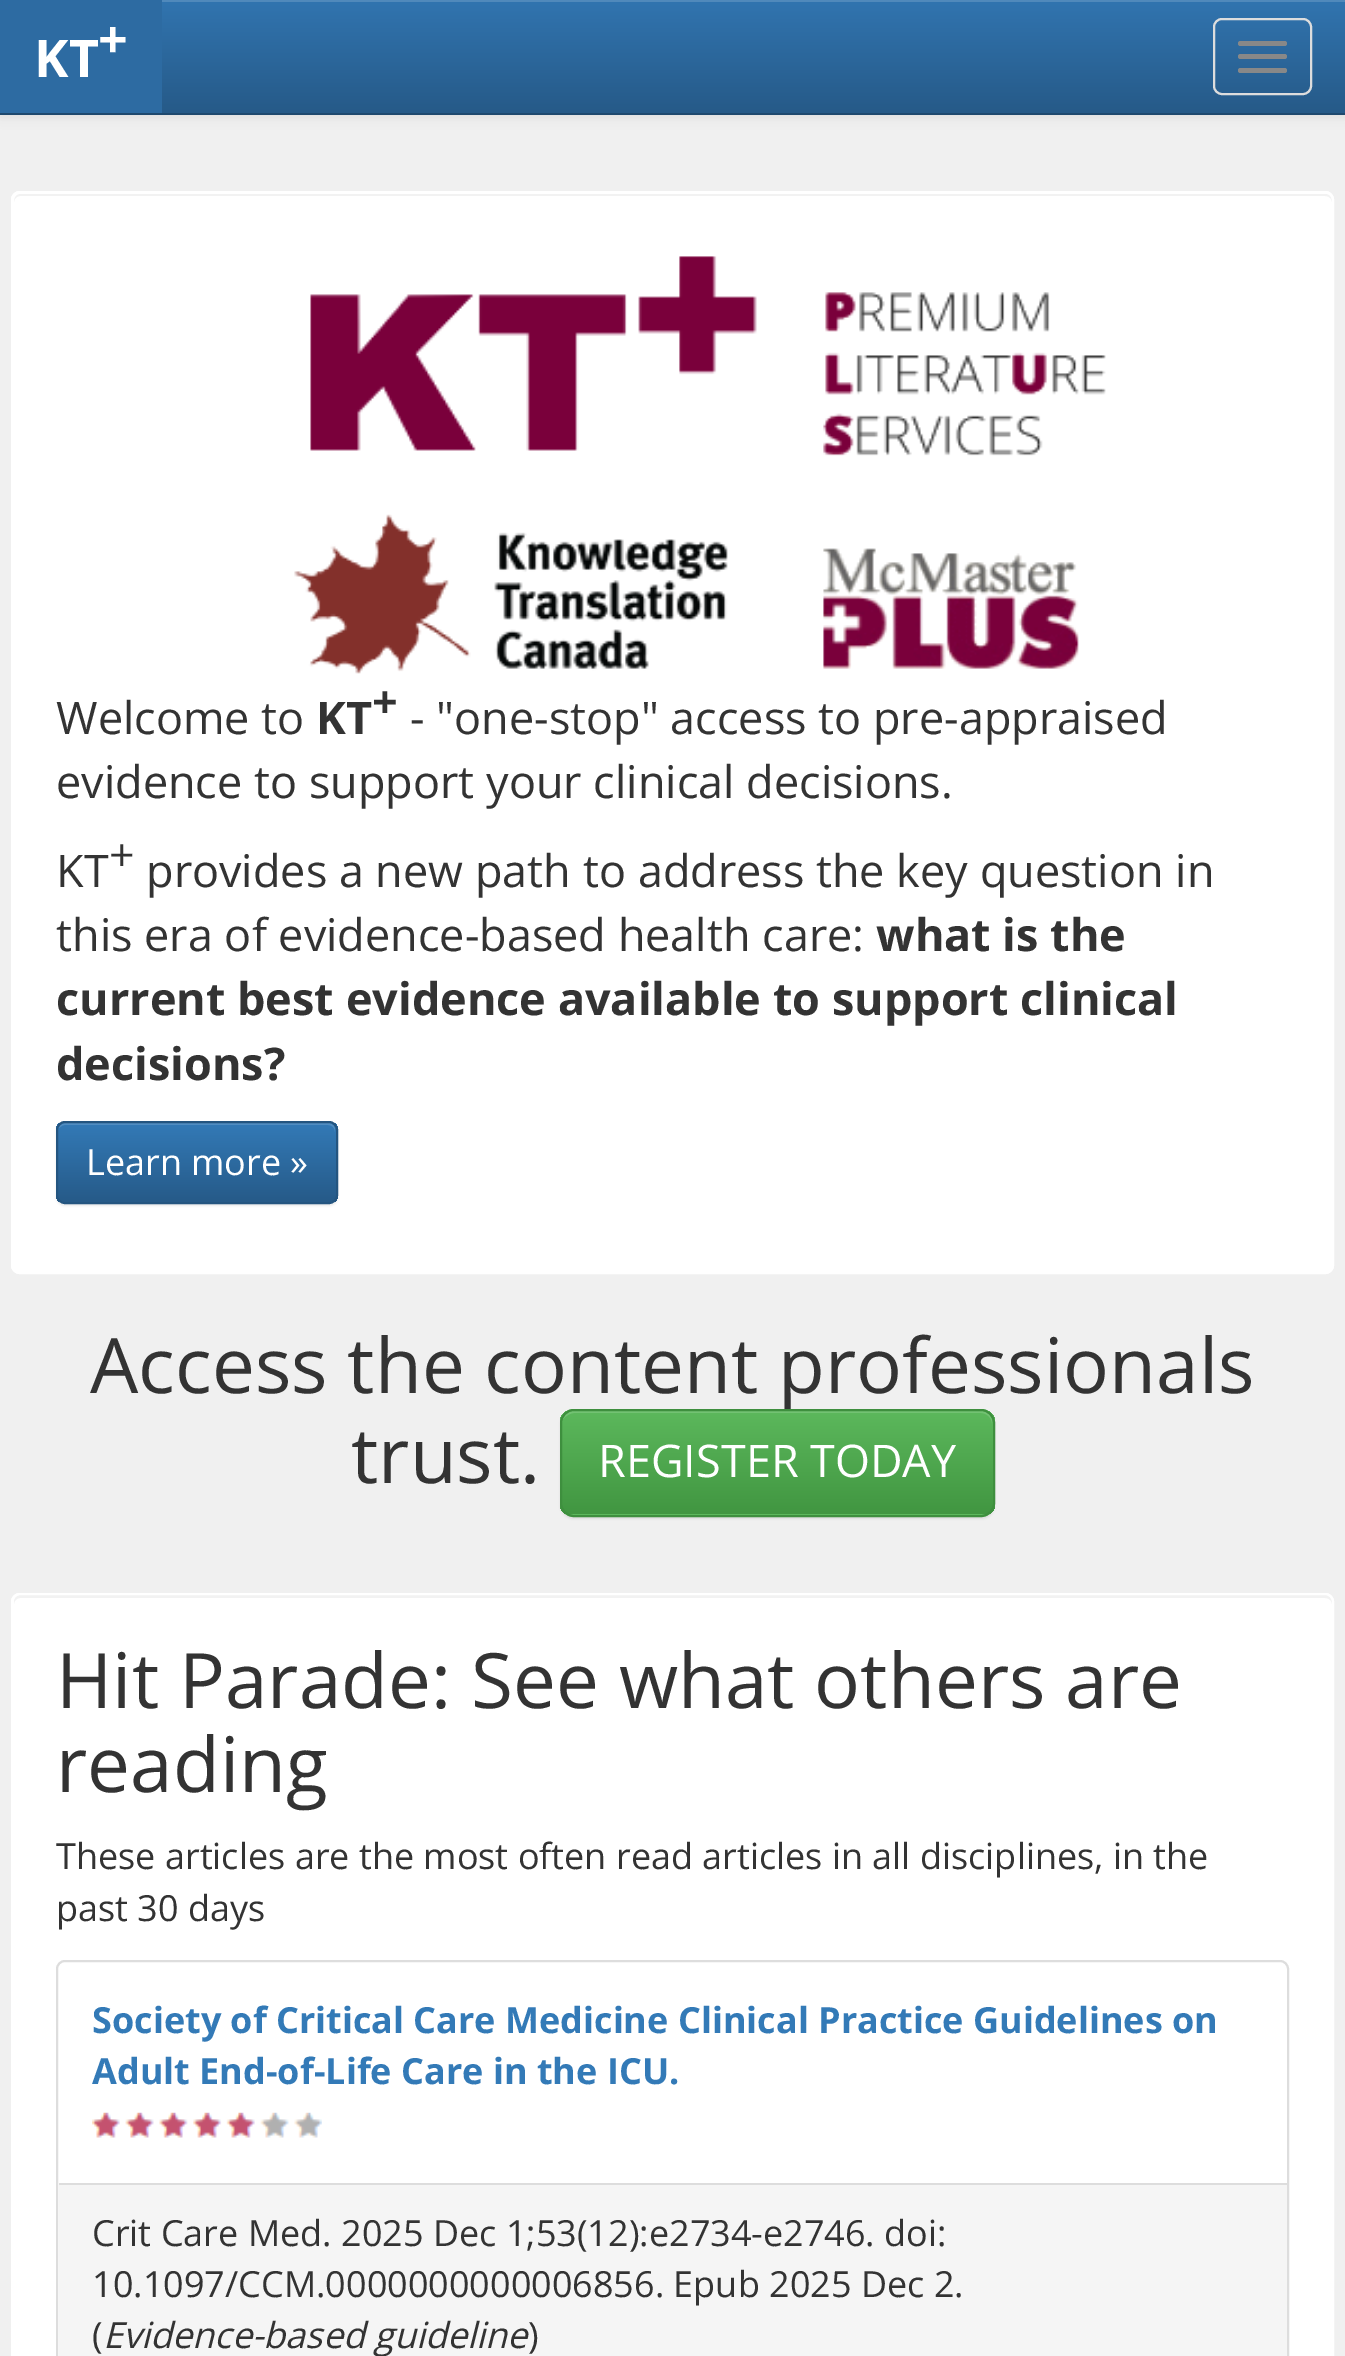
%!PS-Adobe-3.0
%%BoundingBox: 0 0 1345 2356
%%LanguageLevel: 3
%%Pages: 1
%%EndComments
%%BeginProlog
/setink { dup -16 bitshift 255 div exch dup -8 bitshift 255 and 255 div exch 255 and 255 div setrgbcolor } def
/usefont { [ exch dup neg 0 0 3 -1 roll 0 0 ] selectfont } def
/setalpha { dup .setfillconstantalpha .setstrokeconstantalpha } def
/rrect { 5 dict begin { /r /h /w /y /x } { exch def } forall
  x r add y moveto x w add y 2 copy h add r arct x w add y h add x 1 index r arct
  x y h add x y r arct x y 2 copy exch w add exch r arct closepath end } def
/softshadow { 12 dict begin { /a /b /q /h /w /y /x } { exch def } forall gsave /was 0 def
  9 -2 -9 { dup b mul 4 div /e exch def 1 sub .425 mul 2.718 exch exp 1 add a .99 .min exch div /now exch def
    1 1 now sub 1 was sub div sub setalpha /was now def
    w h .min e 2 mul add 0 gt { x e sub y e sub w e 2 mul add h e 2 mul add
      q e add b .6 mul add w h .min 2 div e add .min 0 .max rrect fill } if } for grestore end } def
/drawimage { 5 dict begin { /h /w /y /x /name } { exch def } forall
  gsave x y translate w h scale
  w h 8 [w 0 0 h 0 0] name (r) file false 3 colorimage grestore end } def
%%EndProlog
%%BeginSetup
<< /PageSize [1345 2356] /PageUsesTransparency true >> setpagedevice
%%EndSetup
%%Page: 1 1
0 .pushpdf14devicefilter
0 2356 translate 1 -1 scale
4 setmiterlimit
16#F0F0F0 setink
0 0 1345 2356 rectfill
16#000000 setink
0 2 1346 115 0 5.5 0.07 softshadow
gsave 162 2 moveto 1345 2 lineto 1345 113 lineto 162 113 lineto closepath clip newpath
<< /ShadingType 2 /ColorSpace /DeviceRGB /Coords [673 0 673 113] /Extend [true true] /Function << /FunctionType 2 /Domain [0 1] /C0 [0.192 0.455 0.69] /C1 [0.149 0.353 0.533] /N 1 >> >> shfill grestore
[
    [162 0 1183 2 16#5089BB]
    [0 113 1345 2 16#1F496E]
    [0 0 162 113 16#2D6BA2]
] { aload pop setink rectfill } forall
/OpenSans-Bold 52 usefont
16#FFFFFF setink
34 77 moveto (KT) show
98 58 moveto (+) show
16#DDDDDD setink
2 setlinewidth
1214 19 97 75 8 rrect stroke
16#888888 setink
1238 41 49 5 2.5 rrect fill
1238 54 49 5 2.5 rrect fill
1238 68 49 5 2.5 rrect fill
16#FFFFFF setink
11 191 1323 1083 9 rrect fill
16#F2F2F2 setink
20 196 moveto 1325 196 lineto 1329 196 1332 199 1332 202 curveto 1332 198 1330 194 1325 194 curveto 21 194 lineto 16 194 14 198 14 202 curveto 14 199 17 196 20 196 curveto closepath fill
16#FFFFFF setink
12 192 1321 1081 8 rrect stroke
(img1.raw) 294 256 812 418 drawimage
/OpenSans-Regular 45 usefont
16#333333 setink
56 734 moveto (Welcome to) show
/OpenSans-Bold 45 usefont
316 734 moveto (KT) show
372 718 moveto (+) show
/OpenSans-Regular 45 usefont
[
    [(- "one-stop" access to pre-appraised) 410 734]
    [(evidence to support your clinical decisions.) 56 798]
    [(KT) 56 887]
    [(+) 109 871]
    [(provides a new path to address the key question in) 146 887]
    [(this era of evidence-based health care:) 56 951]
] { aload pop moveto show } forall
/OpenSans-Bold 45 usefont
[
    [(what is the) 876 951]
    [(current best evidence available to support clinical) 56 1015]
    [(decisions?) 56 1080]
] { aload pop moveto show } forall
16#000000 setink
56 1123 282 83 9 1 0.07 softshadow
gsave
56 1121 282 83 9 rrect clip newpath
gsave 56 1123 moveto 338 1123 lineto 338 1202 lineto 56 1202 lineto closepath clip newpath
<< /ShadingType 2 /ColorSpace /DeviceRGB /Coords [197 1123 197 1202] /Extend [true true] /Function << /FunctionType 2 /Domain [0 1] /C0 [0.2 0.478 0.718] /C1 [0.149 0.353 0.533] /N 1 >> >> shfill grestore
grestore
0.15 setalpha
16#FFFFFF setink
65 1125 moveto 328 1125 lineto 332 1125 335 1128 335 1132 curveto 335 1130 lineto 335 1126 332 1123 328 1123 curveto 66 1123 lineto 63 1123 60 1125 59 1128 curveto 61 1126 63 1125 65 1125 curveto closepath fill
1 setalpha
16#245580 setink
57 1122 280 81 8 rrect stroke
/OpenSans-Regular 36 usefont
16#FFFFFF setink
86 1175 moveto (Learn more ») show
/OpenSans-Regular 76.5 usefont
16#333333 setink
90 1393 moveto (Access the content professionals) show
351 1483 moveto (trust.) show
16#000000 setink
560 1411 435 108 14 1 0.07 softshadow
16#5CB85C setink
560 1409 435 108 14 rrect fill
gsave
560 1409 435 108 14 rrect clip newpath
gsave 560 1411 moveto 995 1411 lineto 995 1514 lineto 560 1514 lineto closepath clip newpath
<< /ShadingType 2 /ColorSpace /DeviceRGB /Coords [777 1411 777 1514] /Extend [true true] /Function << /FunctionType 2 /Domain [0 1] /C0 [0.361 0.722 0.361] /C1 [0.255 0.588 0.255] /N 1 >> >> shfill grestore
grestore
0.15 setalpha
16#FFFFFF setink
574 1413 moveto 981 1413 lineto 987 1413 992 1418 992 1424 curveto 992 1422 lineto 992 1416 987 1411 981 1411 curveto 574 1411 lineto 569 1411 565 1414 563 1419 curveto 566 1416 570 1413 574 1413 curveto closepath fill
1 setalpha
16#3E8F3E setink
561 1410 433 106 13 rrect stroke
/OpenSans-Regular 45 usefont
16#FFFFFF setink
598 1477 moveto (REGISTER TODAY) show
11 1593 1323 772 9 rrect fill
16#F2F2F2 setink
20 1598 moveto 1325 1598 lineto 1329 1598 1332 1601 1332 1604 curveto 1332 1602 lineto 1332 1598 1329 1595 1325 1595 curveto 21 1595 lineto 17 1595 14 1598 14 1602 curveto 14 1604 lineto 14 1601 17 1598 20 1598 curveto closepath fill
16#FFFFFF setink
12 1594 1321 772 8 rrect stroke
/OpenSans-Regular 76.5 usefont
16#333333 setink
56 1708 moveto (Hit Parade: See what others are) show
56 1792 moveto (reading) show
/OpenSans-Regular 36 usefont
56 1869 moveto (These articles are the most often read articles in all disciplines, in the) show
56 1921 moveto (past 30 days) show
16#DDDDDD setink
57 1961 1231 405 8 rrect stroke
/OpenSans-Bold 36 usefont
16#337AB7 setink
92 2033 moveto (Society of Critical Care Medicine Clinical Practice Guidelines on) show
92 2084 moveto (Adult End-of-Life Care in the ICU.) show
(img2.raw) 92 2112 230 26 drawimage
16#F5F5F5 setink
59 2185 1228 171 rectfill
16#DDDDDD setink
59 2183 1228 2 rectfill
/OpenSans-Regular 36 usefont
16#333333 setink
[
    [(Crit Care Med. 2025 Dec 1;53\(12\):e2734-e2746. doi:) 92 2246]
    [(10.1097/CCM.0000000000006856. Epub 2025 Dec 2.) 92 2297]
    [(\() 92 2348]
] { aload pop moveto show } forall
/OpenSans-Italic 36 usefont
103 2348 moveto (Evidence-based guideline) show
/OpenSans-Regular 36 usefont
528 2348 moveto (\)) show
.poppdf14devicefilter showpage
%%EOF
